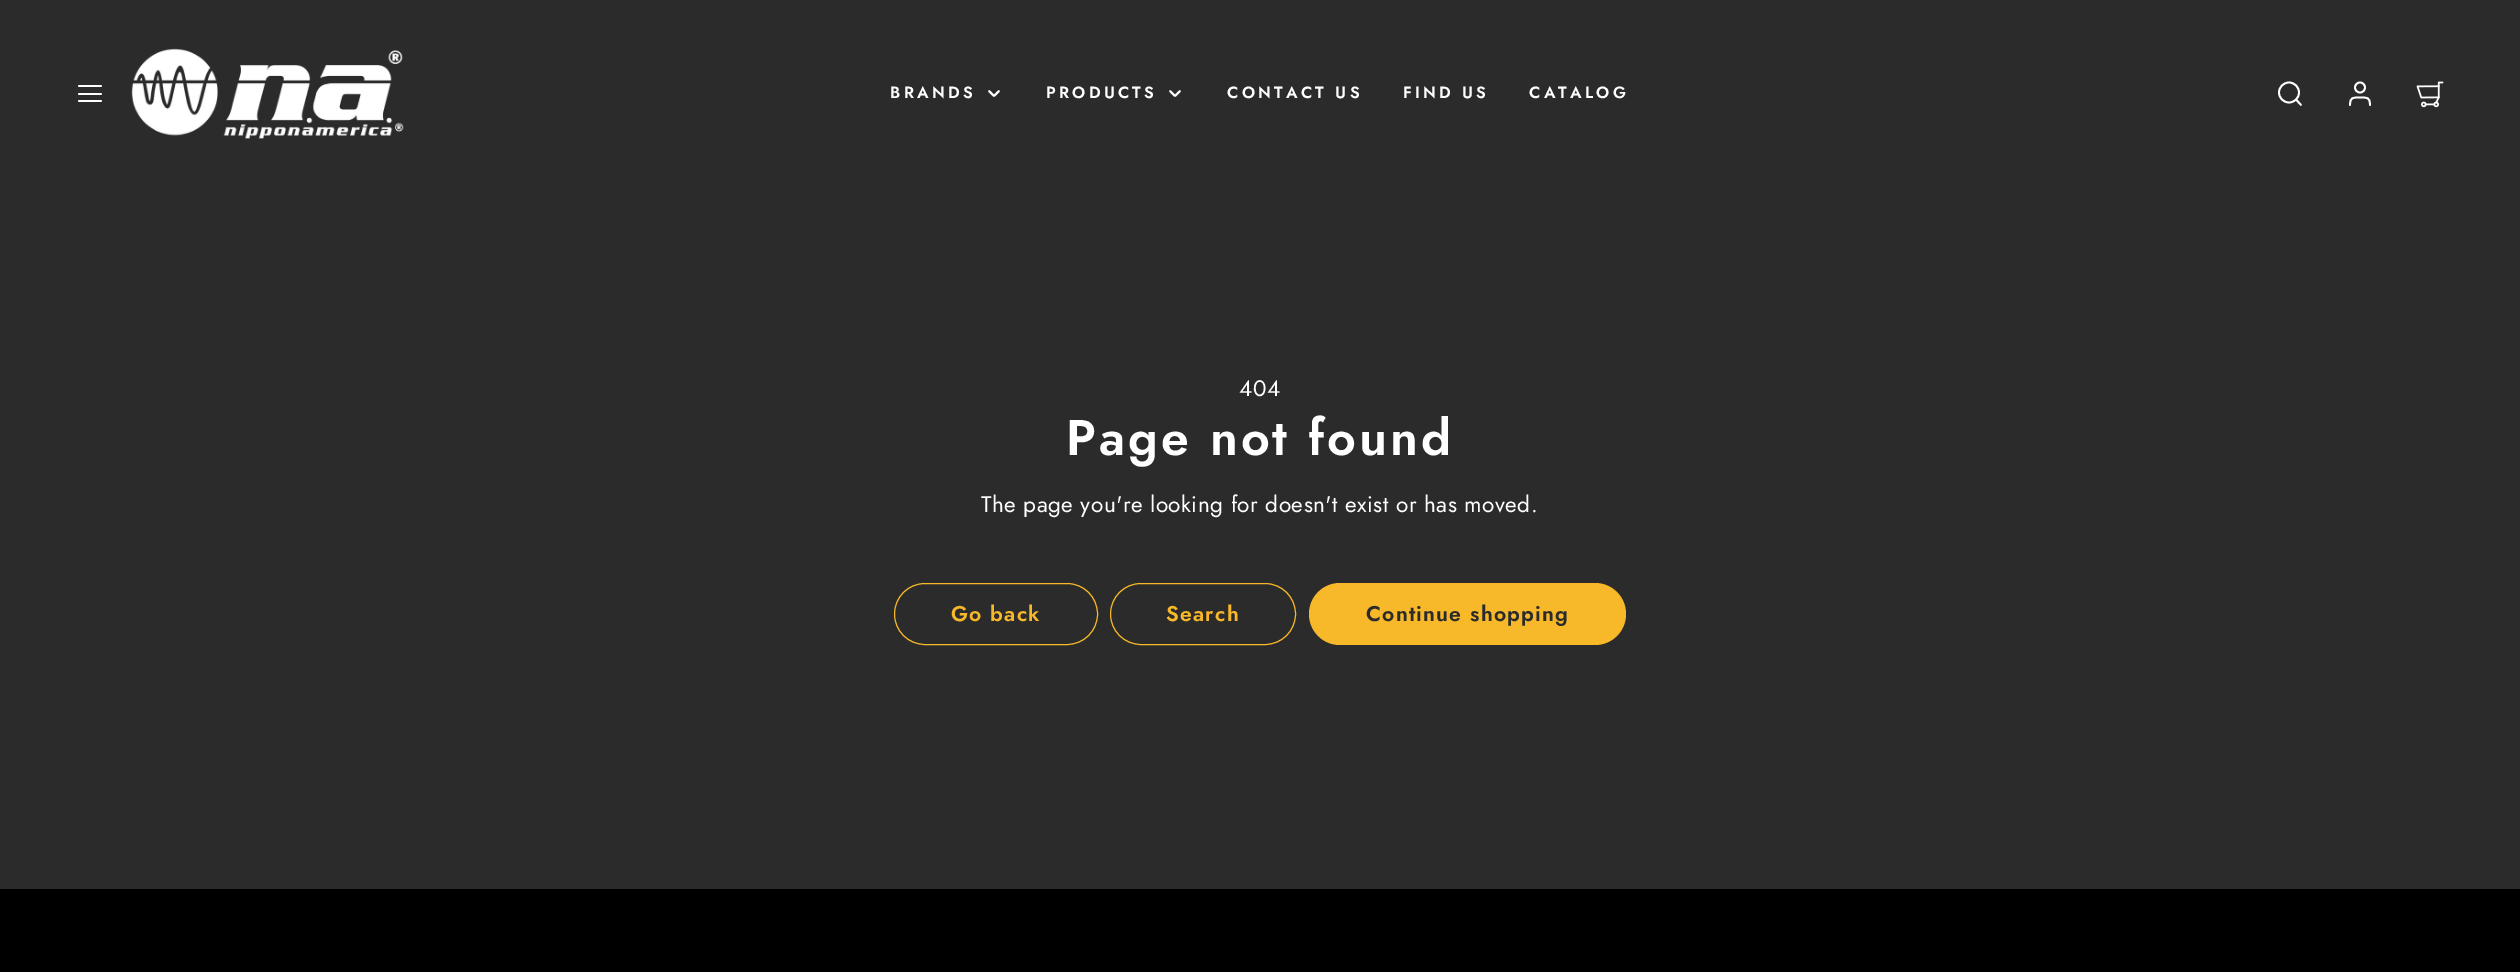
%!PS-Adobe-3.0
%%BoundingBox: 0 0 2520 972
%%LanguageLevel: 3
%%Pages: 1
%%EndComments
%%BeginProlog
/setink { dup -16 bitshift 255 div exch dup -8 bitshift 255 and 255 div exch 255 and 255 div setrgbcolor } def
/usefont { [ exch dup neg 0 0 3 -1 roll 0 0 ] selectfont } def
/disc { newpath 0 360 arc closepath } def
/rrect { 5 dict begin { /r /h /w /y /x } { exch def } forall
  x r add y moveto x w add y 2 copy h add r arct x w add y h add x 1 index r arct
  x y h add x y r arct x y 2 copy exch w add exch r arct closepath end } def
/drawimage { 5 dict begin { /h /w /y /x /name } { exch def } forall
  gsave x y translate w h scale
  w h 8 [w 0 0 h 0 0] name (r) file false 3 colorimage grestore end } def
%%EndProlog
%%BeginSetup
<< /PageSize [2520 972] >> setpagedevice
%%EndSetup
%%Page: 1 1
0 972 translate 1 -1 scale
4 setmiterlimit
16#2B2B2B setink
0 0 2520 972 rectfill
16#FFFFFF setink
1.8 setlinewidth
1 setlinecap
1 setlinejoin
79 94 moveto 101 94 lineto 79 86 moveto 101 86 lineto 79 101 moveto 101 101 lineto stroke
(img1.raw) 131 48 273 91 drawimage
/Jost-SemiBold 16.25 usefont
890 98 moveto 3.25 0 (BRANDS) ashow
989 91 moveto 994 96 lineto 999 91 lineto stroke
1046 98 moveto 3.25 0 (PRODUCTS) ashow
1170 91 moveto 1175 96 lineto 1180 91 lineto stroke
1227 98 moveto 3.25 0 (CONTACT US) ashow
1403 98 moveto 3.25 0 (FIND US) ashow
1529 98 moveto 3.25 0 (CATALOG) ashow
0 setlinecap
0 setlinejoin
2289 92.5 10 disc stroke
1 setlinecap
1 setlinejoin
2301 105 moveto 2296 99.5 lineto stroke
2370 105 moveto 2370 97 2367 97.5 2360 97.5 curveto 2353 97.5 2350 97 2350 105 curveto stroke
0 setlinecap
0 setlinejoin
2360 87.5 5 disc stroke
(img2.raw) 2416 81 28 27 drawimage
/Jost-Regular 22.5 usefont
1239 396 moveto 0.45 0 (404) ashow
/Jost-SemiBold 50 usefont
1066 455 moveto 3 0 (Page not found) ashow
/Jost-Regular 22.5 usefont
981 512 moveto 0.45 0 (The page you're looking for doesn't exist or has moved.) ashow
16#F7B829 setink
1 setlinewidth
894.5 583.5 203 61 30.5 rrect stroke
/Jost-SemiBold 21.25 usefont
951 621 moveto 1.25 0 (Go back) ashow
1110.5 583.5 185 61 30.5 rrect stroke
1166 621 moveto 1.25 0 (Search) ashow
1309 583 317 62 31 rrect fill
16#2B2B2B setink
1366 621 moveto 1.25 0 (Continue shopping) ashow
16#000000 setink
0 889 2520 83 rectfill
showpage
%%EOF
